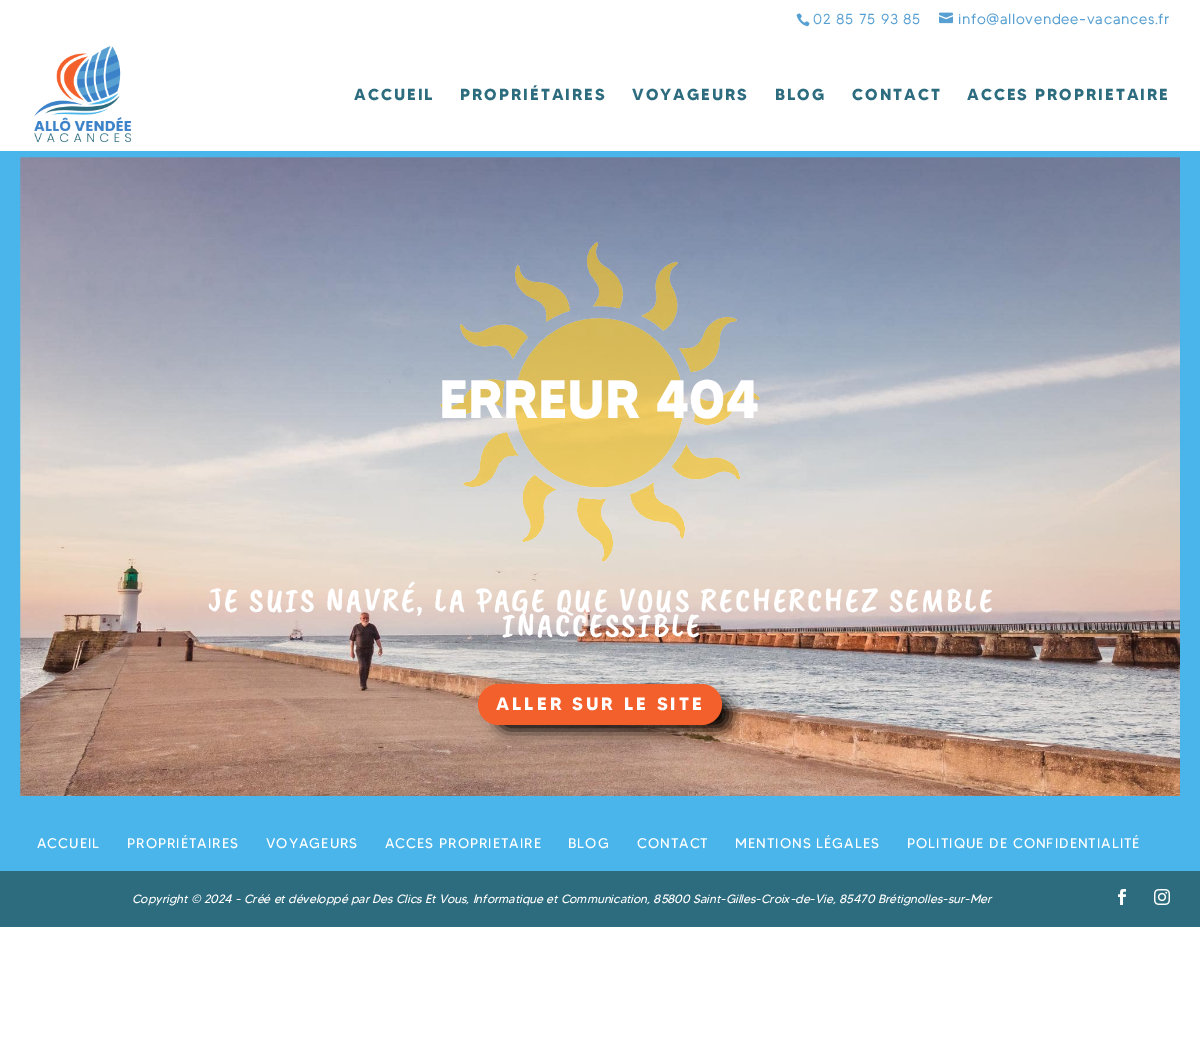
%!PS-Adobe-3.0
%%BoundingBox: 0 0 1200 1056
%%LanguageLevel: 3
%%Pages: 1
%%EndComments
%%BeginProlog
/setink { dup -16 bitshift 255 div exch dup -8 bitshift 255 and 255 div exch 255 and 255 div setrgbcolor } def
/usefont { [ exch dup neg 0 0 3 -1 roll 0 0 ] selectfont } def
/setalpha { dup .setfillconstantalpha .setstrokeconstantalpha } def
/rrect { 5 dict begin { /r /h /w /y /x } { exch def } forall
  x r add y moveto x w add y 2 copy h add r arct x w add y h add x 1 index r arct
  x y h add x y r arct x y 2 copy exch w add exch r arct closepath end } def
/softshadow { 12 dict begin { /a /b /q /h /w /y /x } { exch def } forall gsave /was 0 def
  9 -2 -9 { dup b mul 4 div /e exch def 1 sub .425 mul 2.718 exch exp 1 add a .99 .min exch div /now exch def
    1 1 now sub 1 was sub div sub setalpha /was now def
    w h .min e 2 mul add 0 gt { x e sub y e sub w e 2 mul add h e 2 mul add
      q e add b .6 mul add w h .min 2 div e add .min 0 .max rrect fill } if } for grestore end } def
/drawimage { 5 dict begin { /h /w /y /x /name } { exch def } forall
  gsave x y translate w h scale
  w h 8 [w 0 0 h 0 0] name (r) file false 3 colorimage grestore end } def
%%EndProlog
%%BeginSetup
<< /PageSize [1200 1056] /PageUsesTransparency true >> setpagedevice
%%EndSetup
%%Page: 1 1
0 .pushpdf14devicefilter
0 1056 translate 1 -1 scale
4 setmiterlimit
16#FFFFFF setink
0 0 1200 1056 rectfill
(img1.raw) 796 13 14 14 drawimage
/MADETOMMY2-Bold 14 usefont
16#58A0D2 setink
813 24 moveto 1 0 (02 85 75 93 85) ashow
(img2.raw) 939 12 14 12 drawimage
958 24 moveto 1 0 (info@allovendee-vacances.fr) ashow
(img4.raw) 20 157 1160 639 drawimage
16#4AB5EA setink
20 setlinewidth
10 147 1180 659 rectstroke
16#FFFFFF setink
0 137 1200 14 rectfill
(img3.raw) 34 46 97 96 drawimage
/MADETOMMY-Bold 16 usefont
16#2D6C7E setink
354 100 moveto 2 0 (ACCUEIL) ashow
460 100 moveto 2 0 (PROPRIÉTAIRES) ashow
632 100 moveto 2 0 (VOYAGEURS) ashow
775 100 moveto 2 0 (BLOG) ashow
852 100 moveto 2 0 (CONTACT) ashow
967 100 moveto 2 0 (ACCES PROPRIETAIRE) ashow
(img5.raw) 440 242 320 320 drawimage
/MADETOMMY-Bold 54 usefont
16#FFFFFF setink
439 418 moveto (ERREUR 404) show
/CaveatBrush-Regular 34 usefont
208 611 moveto 2 0 (JE SUIS NAVRÉ, LA PAGE QUE VOUS RECHERCHEZ SEMBLE) ashow
502 636 moveto 2 0 (INACCESSIBLE) ashow
16#000000 setink
497 699 234 31 15.5 7.5 1 softshadow
16#F3602B setink
478 684 244 41 20.5 rrect fill
/MADETOMMY-Bold 18 usefont
16#FFFFFF setink
496 710 moveto 3 0 (ALLER SUR LE SITE) ashow
16#4AB5EA setink
0 816 1200 55 rectfill
/MADETOMMY-Regular 14 usefont
16#FFFFFF setink
37 848 moveto 1 0 (ACCUEIL) ashow
127 848 moveto 1 0 (PROPRIÉTAIRES) ashow
266 848 moveto 1 0 (VOYAGEURS) ashow
385 848 moveto 1 0 (ACCES PROPRIETAIRE) ashow
568 848 moveto 1 0 (BLOG) ashow
637 848 moveto 1 0 (CONTACT) ashow
735 848 moveto 1 0 (MENTIONS LÉGALES) ashow
907 848 moveto 1 0 (POLITIQUE DE CONFIDENTIALITÉ) ashow
16#2D6C7E setink
0 871 1200 56 rectfill
/MADETOMMY-Italic 12 usefont
16#FFFFFF setink
132 903 moveto (Copyright © 2024 - Créé et développé par Des Clics Et Vous, Informatique et Communication, 85800 Saint-Gilles-Croix-de-Vie, 85470 Brétignolles-sur-Mer) show
(img6.raw) 1118 889 8 16 drawimage
(img7.raw) 1154 889 16 16 drawimage
.poppdf14devicefilter showpage
%%EOF
